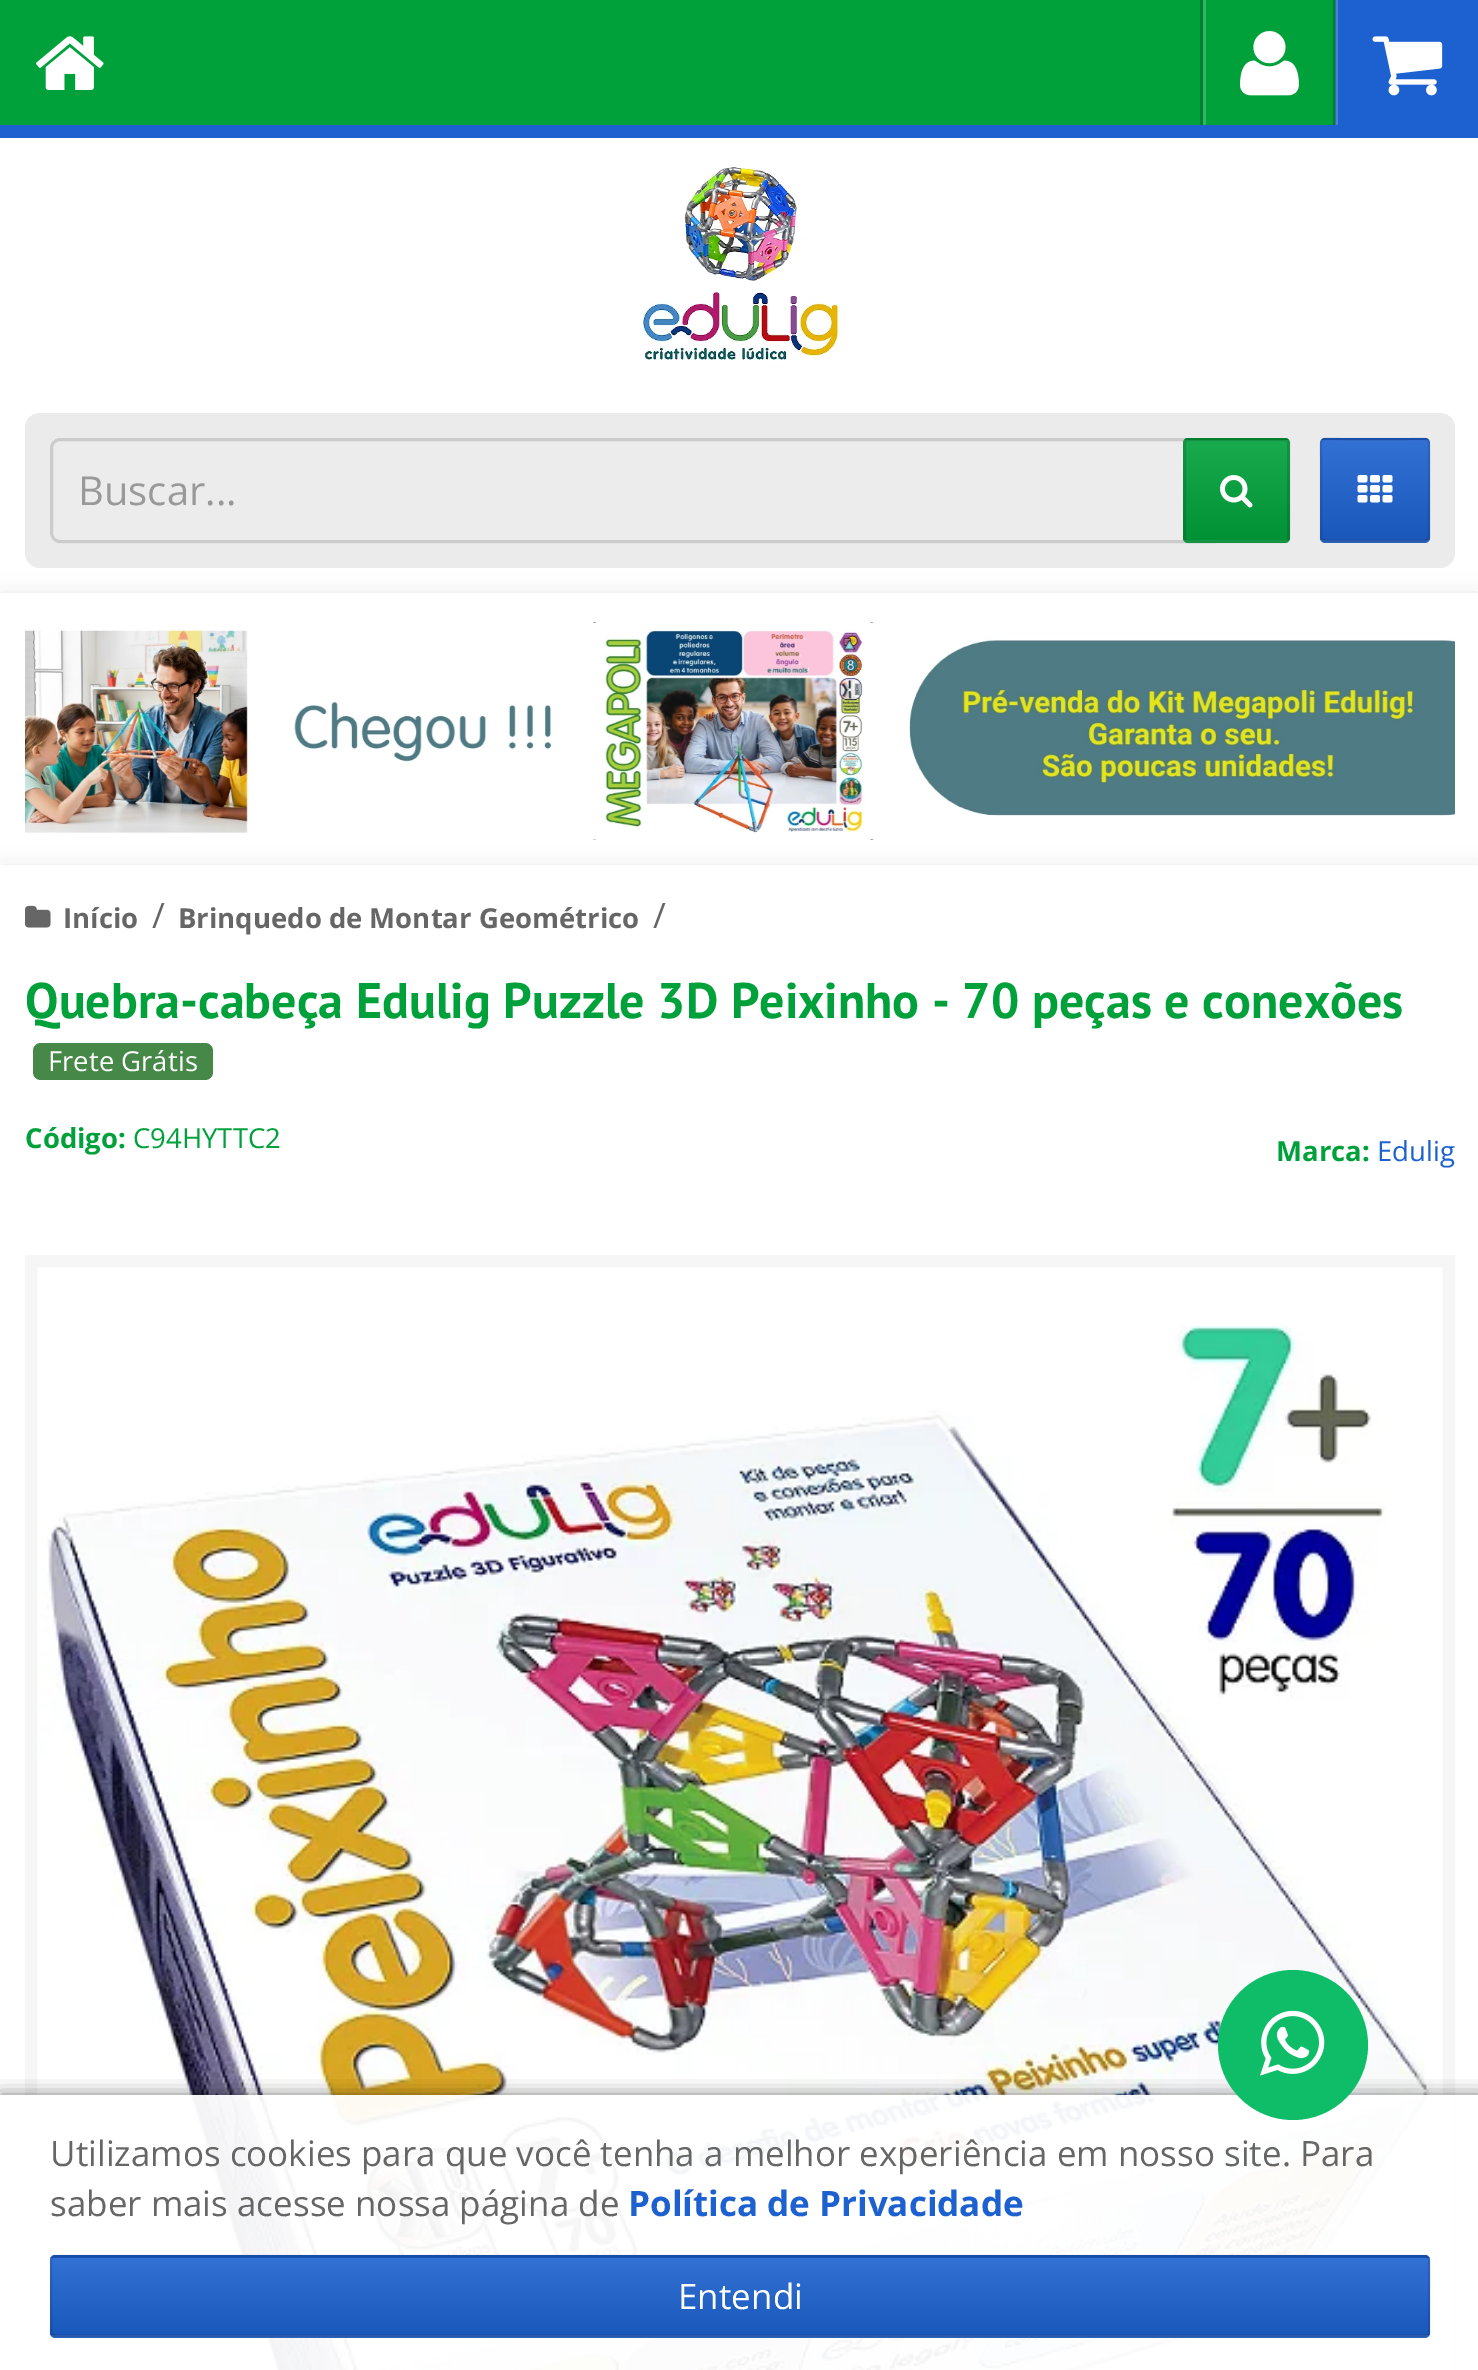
%!PS-Adobe-3.0
%%BoundingBox: 0 0 1478 2370
%%LanguageLevel: 3
%%Pages: 1
%%EndComments
%%BeginProlog
/setink { dup -16 bitshift 255 div exch dup -8 bitshift 255 and 255 div exch 255 and 255 div setrgbcolor } def
/usefont { [ exch dup neg 0 0 3 -1 roll 0 0 ] selectfont } def
/setalpha { dup .setfillconstantalpha .setstrokeconstantalpha } def
/disc { newpath 0 360 arc closepath } def
/rrect { 5 dict begin { /r /h /w /y /x } { exch def } forall
  x r add y moveto x w add y 2 copy h add r arct x w add y h add x 1 index r arct
  x y h add x y r arct x y 2 copy exch w add exch r arct closepath end } def
/softshadow { 12 dict begin { /a /b /q /h /w /y /x } { exch def } forall gsave /was 0 def
  9 -2 -9 { dup b mul 4 div /e exch def 1 sub .425 mul 2.718 exch exp 1 add a .99 .min exch div /now exch def
    1 1 now sub 1 was sub div sub setalpha /was now def
    w h .min e 2 mul add 0 gt { x e sub y e sub w e 2 mul add h e 2 mul add
      q e add b .6 mul add w h .min 2 div e add .min 0 .max rrect fill } if } for grestore end } def
/drawimage { 5 dict begin { /h /w /y /x /name } { exch def } forall
  gsave x y translate w h scale
  w h 8 [w 0 0 h 0 0] name (r) file false 3 colorimage grestore end } def
%%EndProlog
%%BeginSetup
<< /PageSize [1478 2370] /PageUsesTransparency true >> setpagedevice
%%EndSetup
%%Page: 1 1
0 .pushpdf14devicefilter
0 2370 translate 1 -1 scale
4 setmiterlimit
16#FFFFFF setink
0 0 1478 2370 rectfill
16#00A13B setink
0 0 1335 125 rectfill
16#1C61CF setink
0 125 1478 13 rectfill
(img1.raw) 36 36 68 54 drawimage
[
    [1200 0 3 125 16#00812F]
    [1335 0 3 125 16#4981D9]
] { aload pop setink rectfill } forall
0.2 setalpha
[
    [1333 0 3 125 16#000000]
] { aload pop setink rectfill } forall
1 setalpha
[
    [1203 0 3 125 16#33B462]
] { aload pop setink rectfill } forall
(img2.raw) 1240 31 59 65 drawimage
16#1C61CF setink
1338 0 140 125 rectfill
(img3.raw) 1372 36 71 60 drawimage
(img4.raw) 640 165 200 196 drawimage
16#000000 setink
0 600 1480 273 0 12.5 0.15 softshadow
16#EBEBEB setink
25 413 1430 155 15 rrect fill
16#FFFFFF setink
50 438 1175 105 10 rrect fill
16#ECECEC setink
61 440 moveto 57 440 54 443 53 446 curveto 53 532 lineto 53 536 57 540 61 540 curveto 1215 540 lineto 1218 540 1221 538 1222 536 curveto 1223 535 1223 533 1223 532 curveto 1223 448 lineto 1223 444 1219 440 1215 440 curveto closepath fill
16#CCCCCC setink
3 setlinewidth
51.5 439.5 1172 102 8.5 rrect stroke
/OpenSans-Regular 40 usefont
16#999999 setink
78 505 moveto (Buscar...) show
16#00A13B setink
1183 438 107 105 5 rrect fill
gsave
1183 438 107 105 5 rrect clip newpath
0.1 setalpha
gsave 1183 438 moveto 1290 438 lineto 1290 440 lineto 1183 440 lineto closepath clip newpath
<< /ShadingType 2 /ColorSpace /DeviceRGB /Coords [1236 340 1236 440] /Extend [true true] /Function << /FunctionType 2 /Domain [0 1] /C0 [1 1 1] /C1 [0 0 0] /N 1 >> >> shfill grestore
grestore
0.1 setalpha
gsave 1183 440 moveto 1290 440 lineto 1290 540 lineto 1183 540 lineto closepath clip newpath
<< /ShadingType 2 /ColorSpace /DeviceRGB /Coords [1236 440 1236 540] /Extend [true true] /Function << /FunctionType 2 /Domain [0 1] /C0 [1 1 1] /C1 [0 0 0] /N 1 >> >> shfill grestore
gsave
1183 438 107 105 5 rrect clip newpath
gsave 1183 540 moveto 1290 540 lineto 1290 543 lineto 1183 543 lineto closepath clip newpath
<< /ShadingType 2 /ColorSpace /DeviceRGB /Coords [1236 540 1236 640] /Extend [true true] /Function << /FunctionType 2 /Domain [0 1] /C0 [1 1 1] /C1 [0 0 0] /N 1 >> >> shfill grestore
grestore
0.13 setalpha
16#000000 setink
1184.5 439.5 104 102 3.5 rrect stroke
1 setalpha
(img5.raw) 1220 475 33 33 drawimage
16#1C61CF setink
1320 438 110 105 5 rrect fill
gsave
1320 438 110 105 5 rrect clip newpath
0.1 setalpha
gsave 1320 438 moveto 1430 438 lineto 1430 440 lineto 1320 440 lineto closepath clip newpath
<< /ShadingType 2 /ColorSpace /DeviceRGB /Coords [1375 340 1375 440] /Extend [true true] /Function << /FunctionType 2 /Domain [0 1] /C0 [1 1 1] /C1 [0 0 0] /N 1 >> >> shfill grestore
grestore
0.1 setalpha
gsave 1320 440 moveto 1430 440 lineto 1430 540 lineto 1320 540 lineto closepath clip newpath
<< /ShadingType 2 /ColorSpace /DeviceRGB /Coords [1375 440 1375 540] /Extend [true true] /Function << /FunctionType 2 /Domain [0 1] /C0 [1 1 1] /C1 [0 0 0] /N 1 >> >> shfill grestore
gsave
1320 438 110 105 5 rrect clip newpath
gsave 1320 540 moveto 1430 540 lineto 1430 543 lineto 1320 543 lineto closepath clip newpath
<< /ShadingType 2 /ColorSpace /DeviceRGB /Coords [1375 540 1375 640] /Extend [true true] /Function << /FunctionType 2 /Domain [0 1] /C0 [1 1 1] /C1 [0 0 0] /N 1 >> >> shfill grestore
grestore
0.2 setalpha
16#000000 setink
2.5 setlinewidth
1427.5 540 moveto 1425 541 lineto 1324.5 541 lineto 1322.5 540 lineto stroke
0.1 setalpha
1322.5 540 moveto 1321 537.5 lineto 1321 458.5 lineto 1321 435 1317.5 439 1341.5 439 curveto 1408.5 439 lineto 1432.5 439 1429 435 1429 458.5 curveto 1429 537.5 lineto 1427.5 540 lineto stroke
1 setalpha
(img6.raw) 1357 475 36 28 drawimage
16#FFFFFF setink
0 593 1478 272 rectfill
16#000000 setink
0 873 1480 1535 0 12.5 0.15 softshadow
(img7.raw) 25 622 1430 218 drawimage
16#FFFFFF setink
0 865 1478 1505 rectfill
(img8.raw) 25 905 26 23 drawimage
/OpenSans-Bold 27.5 usefont
16#666666 setink
63 928 moveto (Início) show
/OpenSans-Regular 35 usefont
152 928 moveto (/) show
/OpenSans-Bold 27.5 usefont
178 928 moveto (Brinquedo de Montar Geométrico) show
/OpenSans-Regular 35 usefont
653 928 moveto (/) show
/PTSans-Bold 50 usefont
16#00A13B setink
25 1018 moveto (Quebra-cabeça Edulig Puzzle 3D Peixinho - 70 peças e conexões) show
16#468847 setink
33 1043 180 37 8 rrect fill
/OpenSans-Regular 27.5 usefont
16#FFFFFF setink
48 1071 moveto (Frete Grátis) show
/OpenSans-Bold 27.5 usefont
16#00A13B setink
25 1148 moveto (Código:) show
/OpenSans-Regular 27.5 usefont
133 1148 moveto (C94HYTTC2) show
/OpenSans-Bold 27.5 usefont
1276 1161 moveto (Marca:) show
/OpenSans-Regular 27.5 usefont
16#1C61CF setink
1377 1161 moveto (Edulig) show
16#F6F6F6 setink
13 setlinewidth
31.5 1261.5 1417 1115 rectstroke
(img9.raw) 37 1267 1406 1103 drawimage
gsave
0 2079 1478 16 rectclip
16#000000 setink
0 2095 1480 275 0 9 0.5 softshadow
grestore
0.95 setalpha
16#FFFFFF setink
25 2095 1430 275 rectfill
1 setalpha
16#0FBD69 setink
1293 2045 75 disc fill
(img10.raw) 1260 2010 65 66 drawimage
/OpenSans-Regular 35 usefont
16#666666 setink
50 2166 moveto (Utilizamos cookies para que você tenha a melhor experiência em nosso site. Para) show
50 2216 moveto (saber mais acesse nossa página de) show
/OpenSans-Bold 35 usefont
16#1C61CF setink
628 2216 moveto (Política de Privacidade) show
50 2255 1380 83 5 rrect fill
gsave
50 2255 1380 83 5 rrect clip newpath
0.1 setalpha
gsave 50 2255 moveto 1430 2255 lineto 1430 2258 lineto 50 2258 lineto closepath clip newpath
<< /ShadingType 2 /ColorSpace /DeviceRGB /Coords [740 2180 740 2258] /Extend [true true] /Function << /FunctionType 2 /Domain [0 1] /C0 [1 1 1] /C1 [0 0 0] /N 1 >> >> shfill grestore
grestore
0.1 setalpha
gsave 50 2258 moveto 1430 2258 lineto 1430 2335 lineto 50 2335 lineto closepath clip newpath
<< /ShadingType 2 /ColorSpace /DeviceRGB /Coords [740 2258 740 2335] /Extend [true true] /Function << /FunctionType 2 /Domain [0 1] /C0 [1 1 1] /C1 [0 0 0] /N 1 >> >> shfill grestore
gsave
50 2255 1380 83 5 rrect clip newpath
gsave 50 2335 moveto 1430 2335 lineto 1430 2338 lineto 50 2338 lineto closepath clip newpath
<< /ShadingType 2 /ColorSpace /DeviceRGB /Coords [740 2335 740 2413] /Extend [true true] /Function << /FunctionType 2 /Domain [0 1] /C0 [1 1 1] /C1 [0 0 0] /N 1 >> >> shfill grestore
grestore
0.2 setalpha
16#000000 setink
2.5 setlinewidth
1427.5 2335 moveto 1425 2336 lineto 55 2336 lineto 52.5 2335 lineto stroke
0.1 setalpha
52.5 2335 moveto 51.5 2334.5 51 2333.5 51 2332.5 curveto 51 2260 lineto 51 2259 51.5 2258 52.5 2257.5 curveto 53 2256.5 54 2256 55 2256 curveto 1425 2256 lineto 1426 2256 1427 2256.5 1427.5 2257.5 curveto 1428.5 2258 1429 2259 1429 2260 curveto 1429 2332.5 lineto 1429 2333.5 1428.5 2334.5 1427.5 2335 curveto stroke
/OpenSans-Regular 35 usefont
1 setalpha
16#FFFFFF setink
678 2309 moveto (Entendi) show
.poppdf14devicefilter showpage
%%EOF
